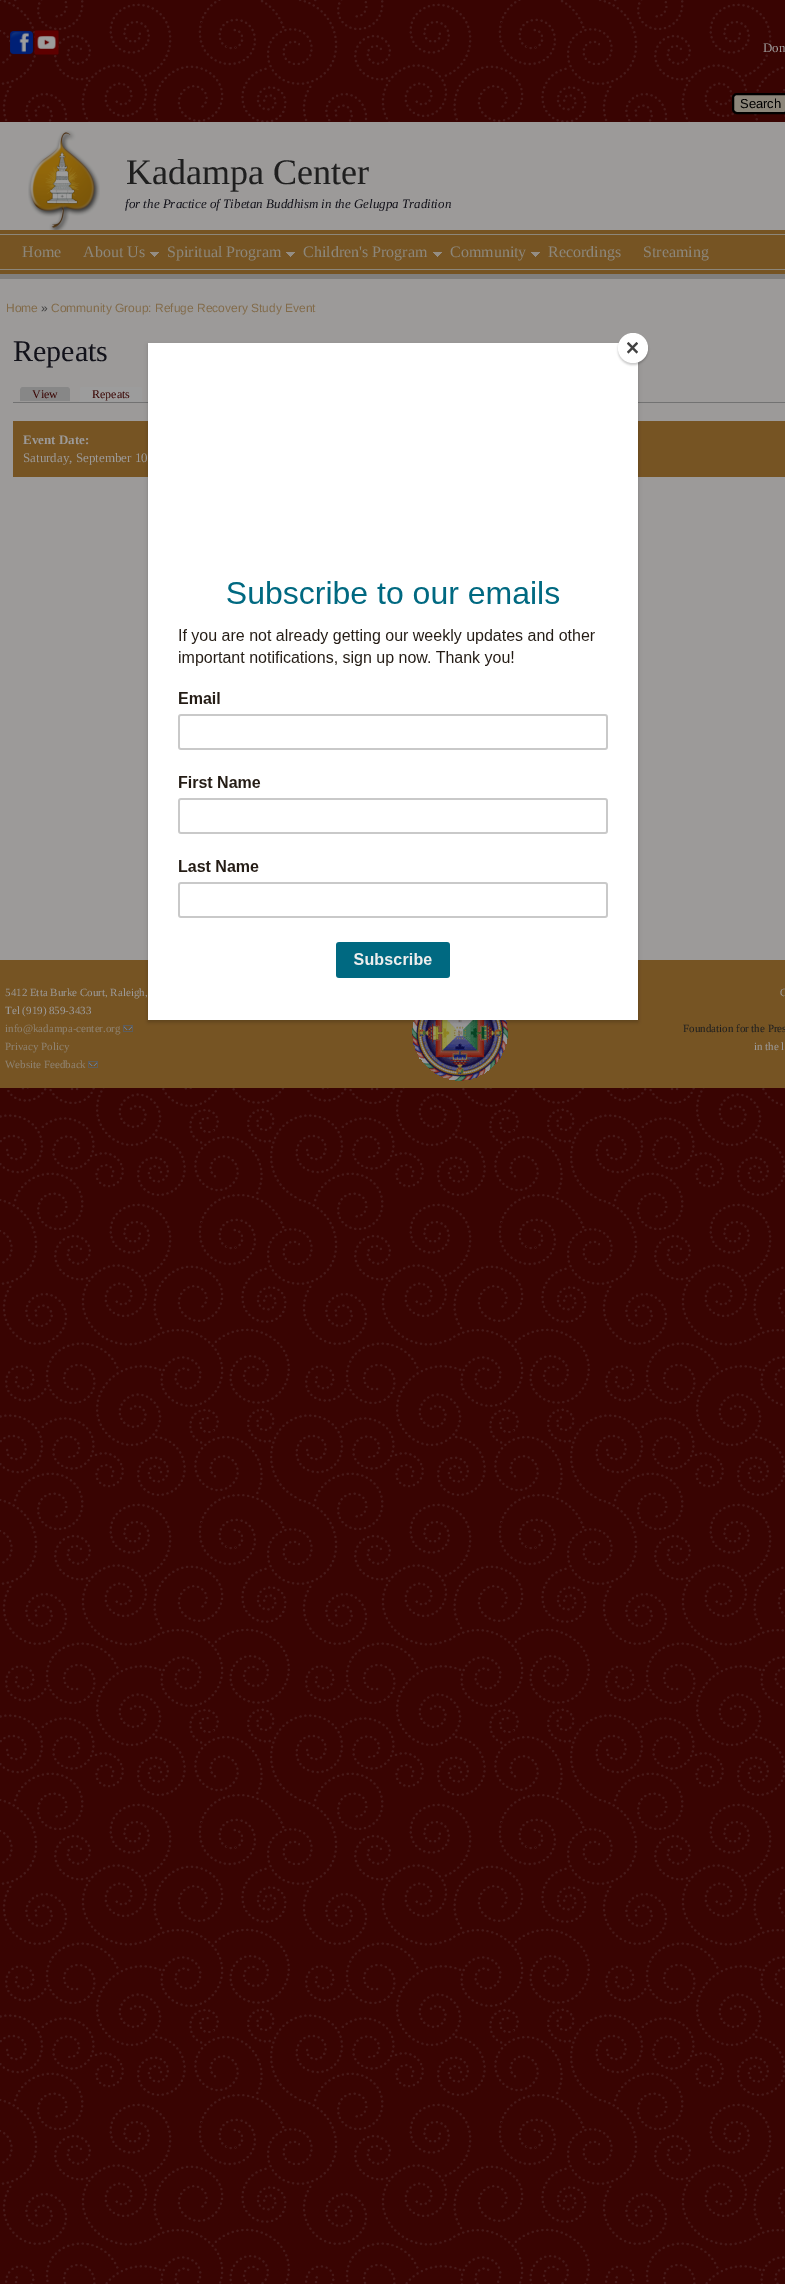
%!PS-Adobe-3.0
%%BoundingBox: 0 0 785 2284
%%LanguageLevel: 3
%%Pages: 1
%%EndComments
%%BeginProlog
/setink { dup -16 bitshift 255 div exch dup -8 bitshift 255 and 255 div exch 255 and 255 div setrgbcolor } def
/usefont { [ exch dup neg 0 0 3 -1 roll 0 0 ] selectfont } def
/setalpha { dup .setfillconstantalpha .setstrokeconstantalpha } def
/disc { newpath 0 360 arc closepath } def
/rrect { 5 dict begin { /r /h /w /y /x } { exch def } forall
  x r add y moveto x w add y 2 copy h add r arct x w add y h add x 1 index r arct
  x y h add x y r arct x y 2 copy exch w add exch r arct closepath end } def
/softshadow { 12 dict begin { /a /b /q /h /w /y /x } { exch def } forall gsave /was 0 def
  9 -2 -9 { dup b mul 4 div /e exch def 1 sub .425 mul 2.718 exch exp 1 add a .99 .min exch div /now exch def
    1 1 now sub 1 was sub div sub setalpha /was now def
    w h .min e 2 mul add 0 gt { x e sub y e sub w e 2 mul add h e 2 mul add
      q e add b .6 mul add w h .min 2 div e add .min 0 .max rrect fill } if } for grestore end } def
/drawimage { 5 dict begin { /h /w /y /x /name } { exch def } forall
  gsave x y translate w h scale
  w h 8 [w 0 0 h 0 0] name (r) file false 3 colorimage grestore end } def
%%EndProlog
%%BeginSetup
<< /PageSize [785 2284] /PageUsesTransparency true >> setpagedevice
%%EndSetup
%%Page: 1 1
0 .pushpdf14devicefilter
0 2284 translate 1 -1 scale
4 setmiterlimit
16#390402 setink
0 0 785 2284 rectfill
(img1.raw) 0 0 785 2284 drawimage
(img2.raw) 10 31 24 24 drawimage
(img3.raw) 34 30 25 25 drawimage
/LiberationSerif-Regular 13 usefont
16#9C9A99 setink
763 52 moveto (Don) show
16#8C867A setink
733 94 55 19 4 rrect gsave fill grestore
16#000000 setink
2 setlinewidth
stroke
/LiberationSans-Regular 13 usefont
740 108 moveto (Search) show
16#9C9A99 setink
0 122 785 108 rectfill
(img4.raw) 28 130 72 100 drawimage
/LiberationSerif-Regular 36 usefont
16#1F1F1F setink
126 184 moveto (Kadampa Center) show
/LiberationSerif-Italic 13 usefont
16#12121A setink
125 208 moveto (for the Practice of Tibetan Buddhism in the Gelugpa Tradition) show
16#9C9A99 setink
0 274 785 686 rectfill
(img5.raw) 0 274 785 5 drawimage
[
    [0 230 785 44 16#765423]
    [0 234 785 1 16#8C867A]
    [0 269 785 1 16#8C867A]
] { aload pop setink rectfill } forall
/LiberationSerif-Regular 16 usefont
22 257 moveto (Home) show
83 257 moveto (About Us) show
(img6.raw) 150 252 9 5 drawimage
167 257 moveto (Spiritual Program) show
(img6.raw) 286 252 9 5 drawimage
303 257 moveto (Children's Program) show
(img6.raw) 433 252 9 5 drawimage
450 257 moveto (Community) show
(img6.raw) 531 252 9 5 drawimage
548 257 moveto (Recordings) show
643 257 moveto (Streaming) show
/LiberationSans-Regular 12 usefont
16#826B4A setink
6 312 moveto (Home) show
16#3E3E3E setink
41 312 moveto (») show
16#826B4A setink
51 312 moveto (Community Group: Refuge Recovery Study Event) show
/LiberationSerif-Regular 30 usefont
16#12121A setink
13 361 moveto (Repeats) show
16#727272 setink
13 402 772 1 rectfill
16#878787 setink
22 387 moveto 68 387 lineto 69 387 70 388 70 389 curveto 70 401 lineto 20 401 lineto 20 389 lineto 20 388 21 387 22 387 curveto closepath fill
16#9C9A99 setink
22 386 moveto 68 386 lineto 70 386 71 387 71 389 curveto 71 401 lineto 19 401 lineto 19 389 lineto 19 387 20 386 22 386 curveto closepath 22 387 moveto 68 387 lineto 69 387 70 388 70 389 curveto 70 401 lineto 20 401 lineto 20 399 18 387 22 387 curveto closepath eofill
/LiberationSerif-Regular 12 usefont
16#390402 setink
32 398 moveto (View) show
16#9C9C9C setink
82 387 moveto 140 387 lineto 141 387 142 388 142 389 curveto 142 401 lineto 80 401 lineto 80 389 lineto 80 388 81 387 82 387 curveto closepath fill
16#390402 setink
92 398 moveto (Repeats) show
16#9C9C9C setink
79 401 64 1 rectfill
16#765423 setink
13 421 772 56 rectfill
/LiberationSerif-Bold 13 usefont
16#9C9A99 setink
23 444 moveto (Event Date:) show
/LiberationSerif-Regular 13 usefont
23 462 moveto (Saturday, September 10) show
16#765423 setink
0 960 785 128 rectfill
/LiberationSerif-Regular 11 usefont
16#9C9A99 setink
5 996 moveto (5412 Etta Burke Court, Raleigh,) show
5 1014 moveto (Tel \(919\) 859-3433) show
16#8F8372 setink
5 1032 moveto (info@kadampa-center.org) show
(img7.raw) 123 1025 10 7 drawimage
5 1050 moveto (Privacy Policy) show
5 1068 moveto (Website Feedback) show
(img7.raw) 88 1061 10 7 drawimage
(img8.raw) 412 1020 96 61 drawimage
16#9C9A99 setink
780 996 moveto (C) show
16#1F1F1F setink
683 1032 moveto (Foundation for the Pres) show
16#9C9A99 setink
754 1050 moveto (in the l) show
16#000000 setink
148 345 490 677 0 2 0.2 softshadow
(img9.raw) 148 343 490 677 drawimage
618 335 30 30 15 1 0.2 softshadow
16#FFFFFF setink
633 348 15 disc fill
16#414141 setink
636.5 342 moveto 638 343.5 lineto 628.5 353.5 lineto 627 352 lineto closepath fill
627 343.5 moveto 628.5 342 lineto 638 352 lineto 636.5 353.5 lineto closepath fill
.poppdf14devicefilter showpage
%%EOF
